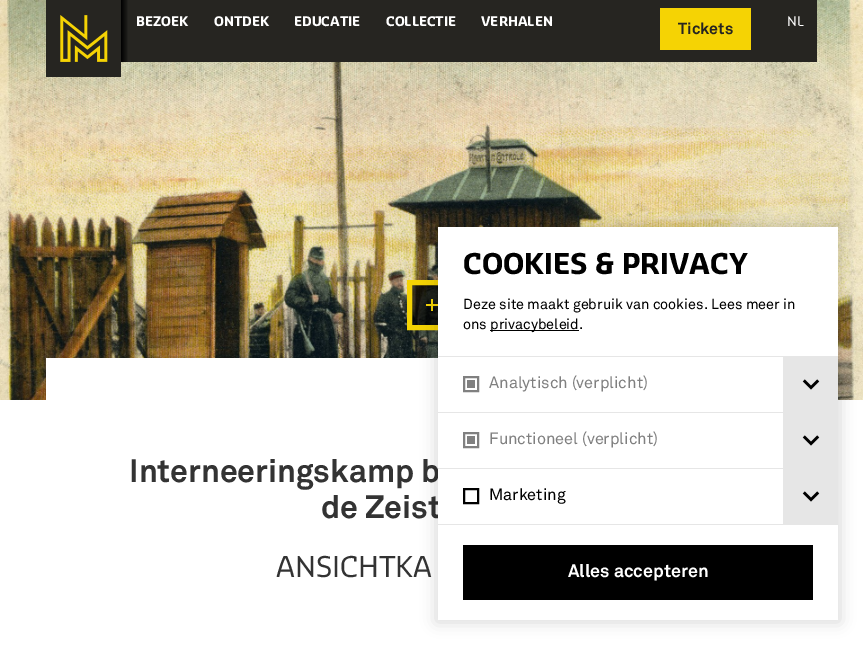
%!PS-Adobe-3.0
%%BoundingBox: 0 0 863 645
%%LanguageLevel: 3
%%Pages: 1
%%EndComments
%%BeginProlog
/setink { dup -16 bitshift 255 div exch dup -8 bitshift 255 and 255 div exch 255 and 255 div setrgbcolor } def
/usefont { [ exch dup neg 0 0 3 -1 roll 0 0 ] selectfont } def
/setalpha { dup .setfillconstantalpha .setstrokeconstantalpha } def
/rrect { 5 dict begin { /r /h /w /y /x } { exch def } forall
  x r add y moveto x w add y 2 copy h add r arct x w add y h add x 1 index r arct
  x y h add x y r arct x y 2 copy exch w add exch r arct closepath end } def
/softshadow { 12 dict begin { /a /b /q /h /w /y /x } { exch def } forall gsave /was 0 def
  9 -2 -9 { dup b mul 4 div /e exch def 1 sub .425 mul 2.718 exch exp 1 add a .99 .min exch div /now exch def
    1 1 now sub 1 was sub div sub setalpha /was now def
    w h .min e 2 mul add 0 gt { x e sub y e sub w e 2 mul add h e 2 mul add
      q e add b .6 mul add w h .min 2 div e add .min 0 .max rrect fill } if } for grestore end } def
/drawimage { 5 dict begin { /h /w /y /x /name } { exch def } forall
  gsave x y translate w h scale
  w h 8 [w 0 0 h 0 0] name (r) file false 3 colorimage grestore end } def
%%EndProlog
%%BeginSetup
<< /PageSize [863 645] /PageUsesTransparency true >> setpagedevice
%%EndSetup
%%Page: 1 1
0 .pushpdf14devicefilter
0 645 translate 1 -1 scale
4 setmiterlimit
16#FFFFFF setink
0 0 863 645 rectfill
(img2.raw) 0 0 863 400 drawimage
16#262521 setink
46 0 771 62 rectfill
(img1.raw) 46 15 75 62 drawimage
gsave 121 0 moveto 128 0 lineto 128 62 lineto 121 62 lineto closepath clip newpath
<< /ShadingType 2 /ColorSpace /DeviceRGB /Coords [121 31 129 31] /Extend [true true] /Function << /FunctionType 2 /Domain [0 1] /C0 [0 0 0] /C1 [0.149 0.145 0.129] /N 1 >> >> shfill grestore
/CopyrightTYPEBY-Bold 13 usefont
16#FFFFFF setink
[
    [(BEZOEK) 136 26]
    [(ONTDEK) 214 26]
    [(EDUCATIE) 294 26]
    [(COLLECTIE) 386 26]
    [(VERHALEN) 481 26]
] { aload pop moveto show } forall
/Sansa-Regular 13 usefont
787 26 moveto (NL) show
16#F5D304 setink
660 8 91 42 rectfill
/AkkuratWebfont-Bold 16 usefont
16#262521 setink
678 34 moveto (Tickets) show
0.75 setalpha
16#000000 setink
412 285 26 40 rectfill
1 setalpha
16#F5D304 setink
5 setlinewidth
409.5 282.5 45 45 rectstroke
(img3.raw) 426 299 12 12 drawimage
16#FFFFFF setink
46 358 771 42 rectfill
/AkkuratWebfont-Bold 32 usefont
16#333333 setink
129 482 moveto (Interneeringskamp b) show
321 518 moveto (de Zeist) show
/Sansa-Regular 28 usefont
276 577 moveto (ANSICHTKA) show
16#000000 setink
436 225 404 397 0 7.5 0.15 softshadow
16#FFFFFF setink
438 227 400 393 rectfill
/CopyrightTYPEBY-Bold 28 usefont
16#000000 setink
463 274 moveto (COOKIES & PRIVACY) show
/AkkuratWebfont-Regular 14.4 usefont
463 309 moveto (Deze site maakt gebruik van cookies. Lees meer in) show
463 329 moveto (ons) show
490 330 89 1 rectfill
490 329 moveto (privacybeleid.) show
16#E6E6E6 setink
438 524 400 1 rectfill
438 356 400 1 rectfill
16#808080 setink
2 setlinewidth
464 377 14 14 rectstroke
467 380 8 8 rectfill
/AkkuratWebfont-Regular 16.25 usefont
489 388 moveto (Analytisch \(verplicht\)) show
16#E6E6E6 setink
783 357 55 55 rectfill
(img4.raw) 802 379 18 11 drawimage
438 412 400 1 rectfill
16#808080 setink
464 433 14 14 rectstroke
467 436 8 8 rectfill
489 444 moveto (Functioneel \(verplicht\)) show
16#E6E6E6 setink
783 413 55 55 rectfill
(img4.raw) 802 435 18 11 drawimage
438 468 400 1 rectfill
16#000000 setink
464 489 14 14 rectstroke
489 500 moveto (Marketing) show
16#E6E6E6 setink
783 469 55 55 rectfill
(img4.raw) 802 491 18 11 drawimage
16#000000 setink
463 545 350 55 rectfill
/AkkuratWebfont-Bold 18 usefont
16#FFFFFF setink
568 577 moveto (Alles accepteren) show
.poppdf14devicefilter showpage
%%EOF
